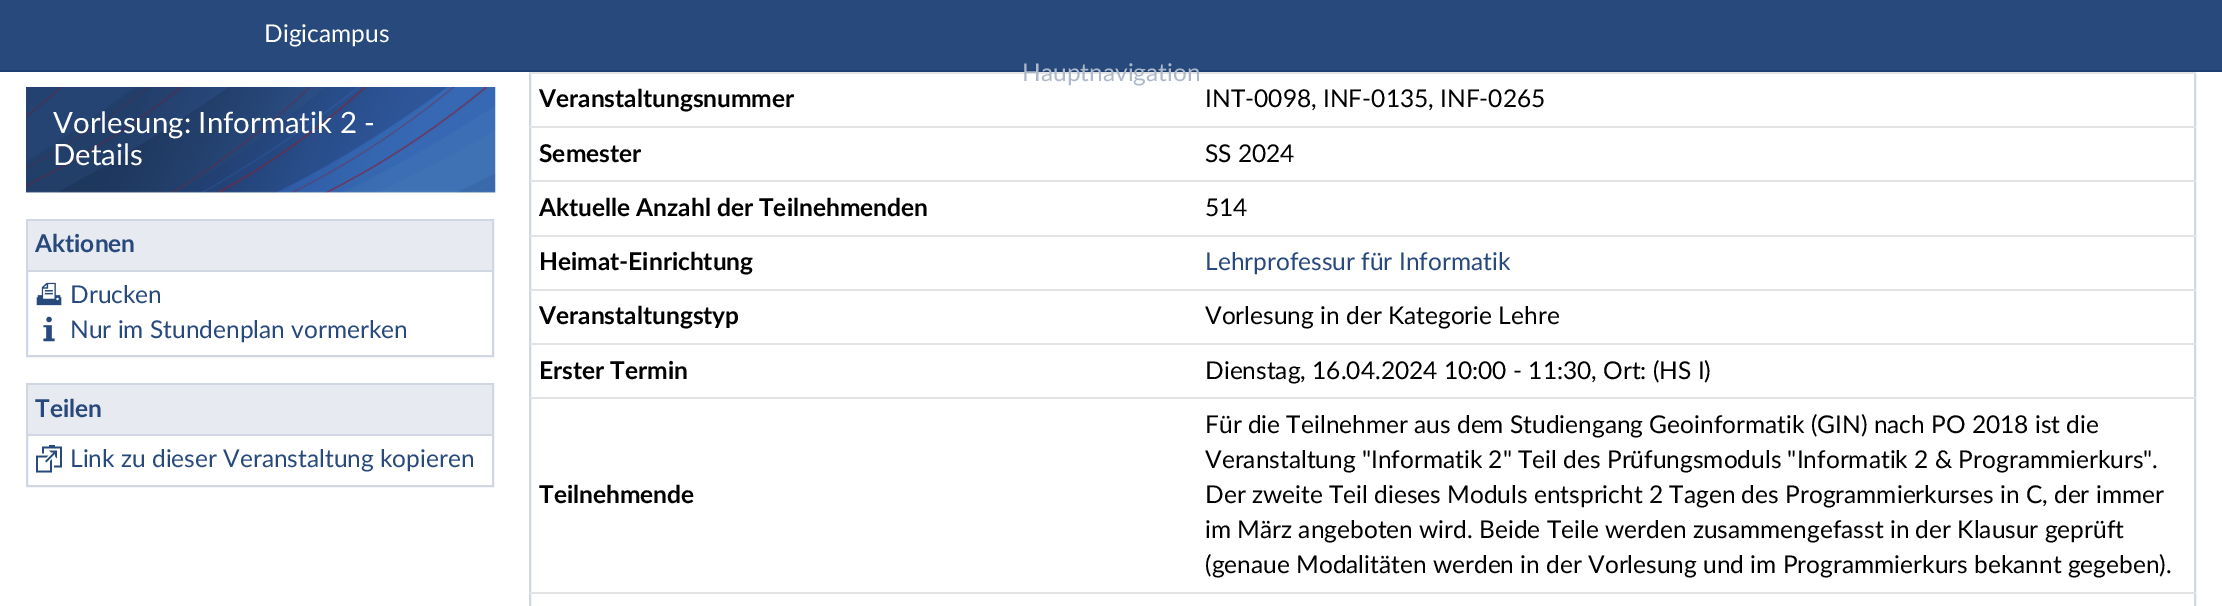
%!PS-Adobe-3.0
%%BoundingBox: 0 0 2222 606
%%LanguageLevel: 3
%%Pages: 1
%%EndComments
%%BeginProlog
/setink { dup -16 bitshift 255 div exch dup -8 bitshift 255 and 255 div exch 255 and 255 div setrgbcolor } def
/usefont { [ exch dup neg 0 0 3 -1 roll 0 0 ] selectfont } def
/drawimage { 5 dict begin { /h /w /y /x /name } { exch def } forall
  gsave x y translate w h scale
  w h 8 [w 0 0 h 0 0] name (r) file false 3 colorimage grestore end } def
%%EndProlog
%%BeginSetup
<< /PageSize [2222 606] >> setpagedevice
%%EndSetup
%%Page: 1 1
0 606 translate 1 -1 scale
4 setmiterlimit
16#FFFFFF setink
0 0 2222 606 rectfill
16#D0D7E3 setink
2 setlinewidth
530 -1 1665 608 rectstroke
16#28497C setink
0 0 2222 70 rectfill
16#1F3F70 setink
0 70 2222 2 rectfill
/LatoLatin-Regular 24.5 usefont
16#FFFFFF setink
264 42 moveto (Digicampus) show
16#E2E3E4 setink
530 72 1666 2 rectfill
16#ADB9CB setink
1022 81 moveto (Hauptnavigation) show
(img1.raw) 26 87 470 106 drawimage
/LatoLatin-Regular 29.4 usefont
16#FFFFFF setink
53 133 moveto (Vorlesung: Informatik 2 -) show
53 165 moveto (Details) show
16#D0D7E3 setink
27 220 466 136 rectstroke
16#E7EBF1 setink
28 221 464 49 rectfill
/LatoLatin-Bold 24.5 usefont
16#28497C setink
35 252 moveto (Aktionen) show
16#D0D7E3 setink
28 270 464 2 rectfill
(img2.raw) 36 282 26 24 drawimage
/LatoLatin-Regular 24.5 usefont
16#28497C setink
70 303 moveto (Drucken) show
(img3.raw) 43 316 12 26 drawimage
70 338 moveto (Nur im Stundenplan vormerken) show
16#D0D7E3 setink
27 384 466 102 rectstroke
16#E7EBF1 setink
28 385 464 49 rectfill
/LatoLatin-Bold 24.5 usefont
16#28497C setink
35 417 moveto (Teilen) show
16#D0D7E3 setink
28 434 464 2 rectfill
(img4.raw) 36 445 26 28 drawimage
/LatoLatin-Regular 24.5 usefont
16#28497C setink
70 467 moveto (Link zu dieser Veranstaltung kopieren) show
/LatoLatin-Bold 24.5 usefont
16#000000 setink
539 107 moveto (Veranstaltungsnummer) show
16#E2E3E4 setink
530 126 1666 2 rectfill
/LatoLatin-Regular 24.5 usefont
16#000000 setink
1205 107 moveto (INT-0098, INF-0135, INF-0265) show
/LatoLatin-Bold 24.5 usefont
539 162 moveto (Semester) show
16#E2E3E4 setink
530 180 1666 2 rectfill
/LatoLatin-Regular 24.5 usefont
16#000000 setink
1205 162 moveto (SS 2024) show
/LatoLatin-Bold 24.5 usefont
539 216 moveto (Aktuelle Anzahl der Teilnehmenden) show
16#E2E3E4 setink
530 235 1666 2 rectfill
/LatoLatin-Regular 24.5 usefont
16#000000 setink
1205 216 moveto (514) show
/LatoLatin-Bold 24.5 usefont
539 270 moveto (Heimat-Einrichtung) show
16#E2E3E4 setink
530 289 1666 2 rectfill
/LatoLatin-Regular 24.5 usefont
16#28497C setink
1205 270 moveto (Lehrprofessur für Informatik) show
/LatoLatin-Bold 24.5 usefont
16#000000 setink
539 324 moveto (Veranstaltungstyp) show
16#E2E3E4 setink
530 343 1666 2 rectfill
/LatoLatin-Regular 24.5 usefont
16#000000 setink
1205 324 moveto (Vorlesung in der Kategorie Lehre) show
/LatoLatin-Bold 24.5 usefont
539 379 moveto (Erster Termin) show
16#E2E3E4 setink
530 397 1666 2 rectfill
/LatoLatin-Regular 24.5 usefont
16#000000 setink
1205 379 moveto (Dienstag, 16.04.2024 10:00 - 11:30, Ort: \(HS I\)) show
/LatoLatin-Bold 24.5 usefont
539 503 moveto (Teilnehmende) show
16#E2E3E4 setink
530 592 1666 2 rectfill
/LatoLatin-Regular 24.5 usefont
16#000000 setink
[
    [(Für die Teilnehmer aus dem Studiengang Geoinformatik \(GIN\) nach PO 2018 ist die) 1205 433]
    [(Veranstaltung "Informatik 2" Teil des Prüfungsmoduls "Informatik 2 & Programmierkurs".) 1205 468]
    [(Der zweite Teil dieses Moduls entspricht 2 Tagen des Programmierkurses in C, der immer) 1205 503]
    [(im März angeboten wird. Beide Teile werden zusammengefasst in der Klausur geprüft) 1205 538]
    [(\(genaue Modalitäten werden in der Vorlesung und im Programmierkurs bekannt gegeben\).) 1205 573]
] { aload pop moveto show } forall
showpage
%%EOF
